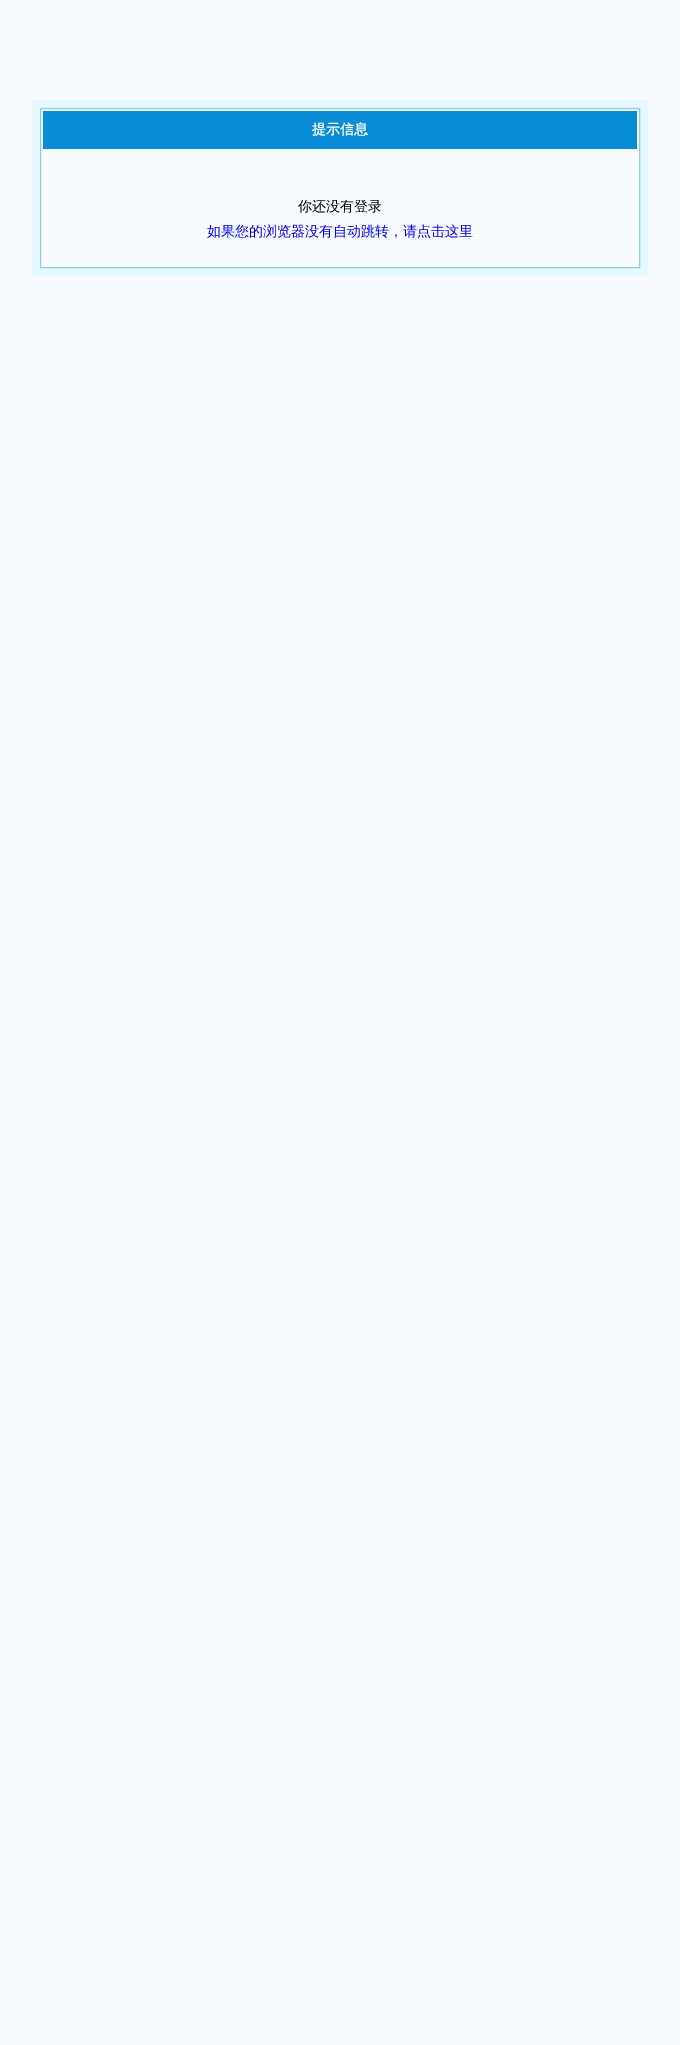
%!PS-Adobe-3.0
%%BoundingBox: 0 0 680 2045
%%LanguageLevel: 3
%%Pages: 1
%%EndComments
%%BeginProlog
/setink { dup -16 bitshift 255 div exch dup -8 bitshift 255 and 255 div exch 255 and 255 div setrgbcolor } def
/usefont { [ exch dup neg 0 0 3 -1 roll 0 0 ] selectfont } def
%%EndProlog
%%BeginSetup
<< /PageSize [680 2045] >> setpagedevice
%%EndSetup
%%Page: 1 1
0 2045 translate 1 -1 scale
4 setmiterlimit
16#F7FAFF setink
0 0 680 2045 rectfill
16#E5F7FF setink
8 setlinewidth
36 104 608 168 rectstroke
16#93CCE8 setink
1 setlinewidth
40.5 108.5 599 159 rectstroke
16#078CD5 setink
43 111 594 38 rectfill
/WenQuanYiZenHei-Bold 14 usefont
16#FFFFFF setink
312 134 moveto (提示信息) show
/WenQuanYiZenHei-Medium 14 usefont
16#000000 setink
298 211 moveto (你还没有登录) show
16#0000FF setink
207 236 moveto (如果您的浏览器没有自动跳转，请点击这里) show
showpage
%%EOF
